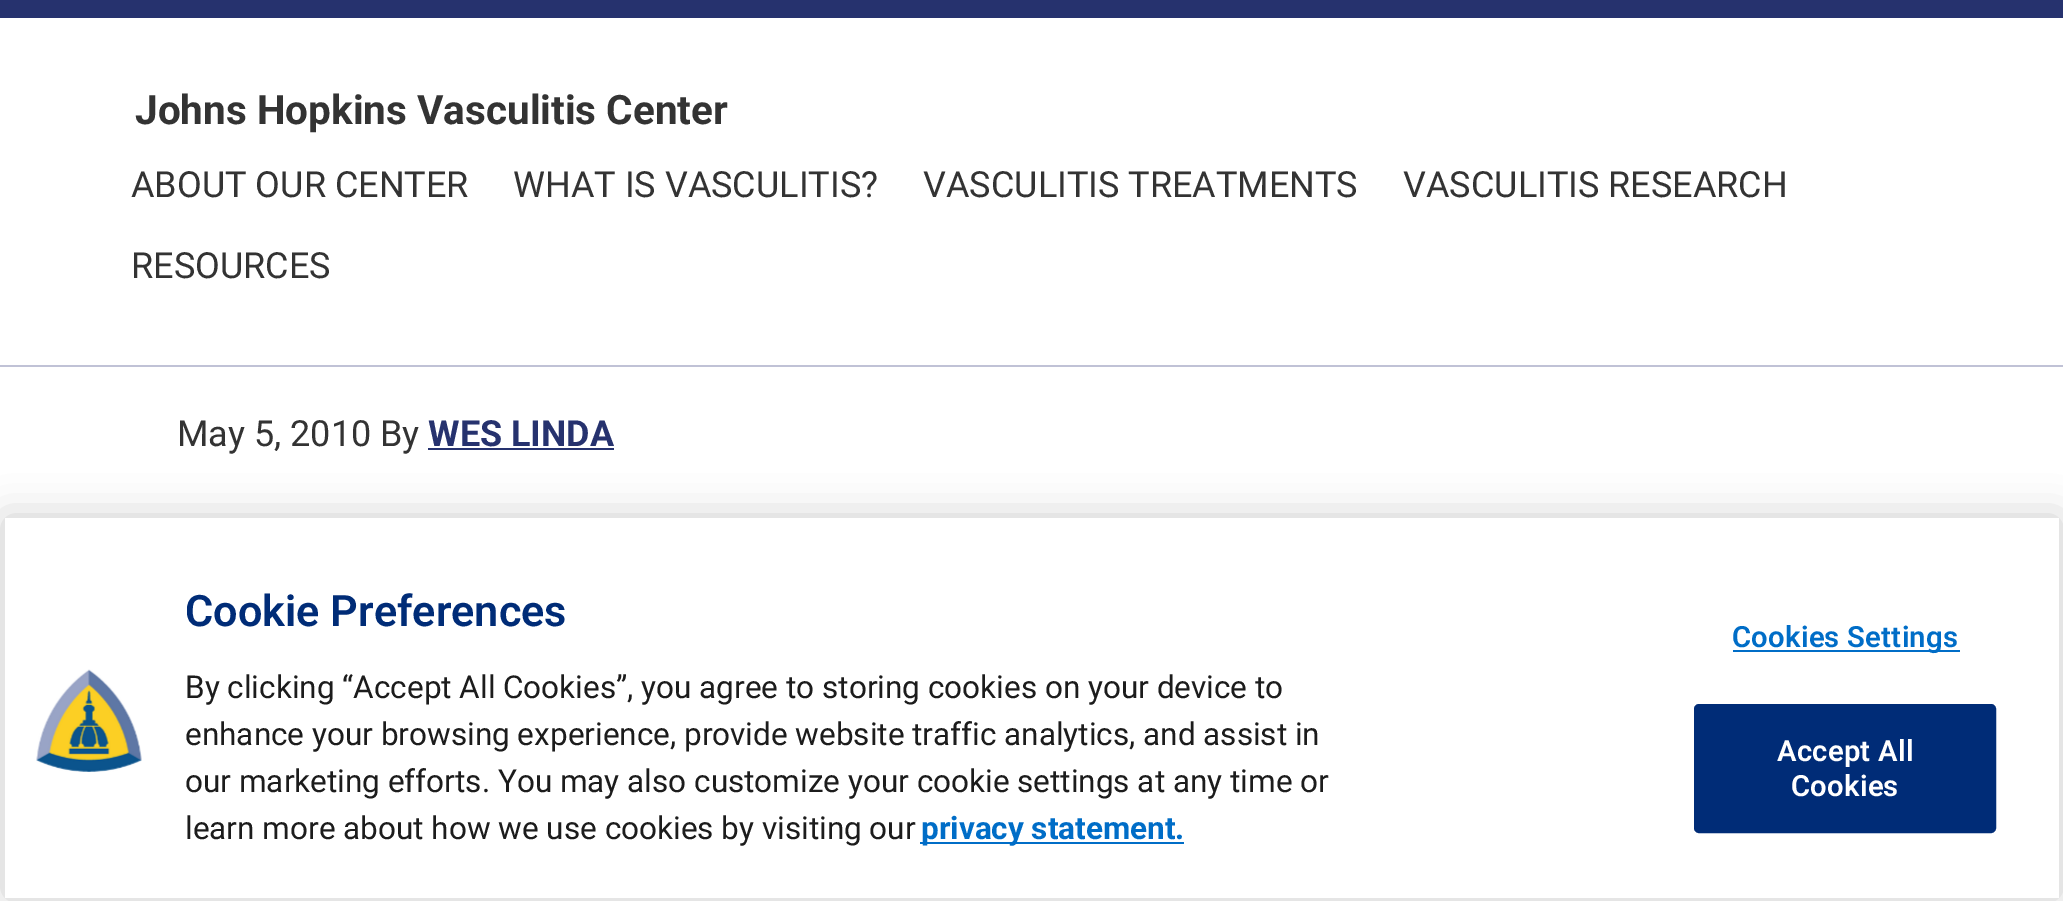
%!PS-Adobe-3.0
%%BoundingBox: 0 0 2063 901
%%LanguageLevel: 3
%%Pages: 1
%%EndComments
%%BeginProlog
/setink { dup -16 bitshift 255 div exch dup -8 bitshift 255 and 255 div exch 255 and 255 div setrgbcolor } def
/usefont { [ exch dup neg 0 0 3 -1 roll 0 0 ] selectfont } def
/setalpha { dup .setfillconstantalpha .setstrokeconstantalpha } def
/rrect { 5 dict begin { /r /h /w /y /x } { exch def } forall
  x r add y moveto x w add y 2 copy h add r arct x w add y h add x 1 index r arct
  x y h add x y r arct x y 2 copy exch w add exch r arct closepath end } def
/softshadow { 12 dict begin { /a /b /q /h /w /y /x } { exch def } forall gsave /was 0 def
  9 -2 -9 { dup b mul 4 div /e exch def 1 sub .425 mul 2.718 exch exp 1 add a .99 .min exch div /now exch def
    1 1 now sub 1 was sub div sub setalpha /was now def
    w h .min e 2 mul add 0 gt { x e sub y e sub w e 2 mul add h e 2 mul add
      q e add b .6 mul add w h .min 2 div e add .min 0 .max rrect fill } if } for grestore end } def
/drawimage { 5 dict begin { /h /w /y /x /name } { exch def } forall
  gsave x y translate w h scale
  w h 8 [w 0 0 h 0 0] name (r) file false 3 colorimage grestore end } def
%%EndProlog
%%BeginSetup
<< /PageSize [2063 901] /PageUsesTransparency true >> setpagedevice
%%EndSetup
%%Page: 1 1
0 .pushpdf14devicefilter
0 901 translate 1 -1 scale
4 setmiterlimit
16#FFFFFF setink
0 0 2063 901 rectfill
16#26326E setink
0 0 2063 18 rectfill
16#C0C2D6 setink
0 365 2063 2 rectfill
/Roboto-Bold 40.5 usefont
16#333333 setink
135 124 moveto (Johns Hopkins Vasculitis Center) show
/Roboto-Regular 36 usefont
[
    [(ABOUT OUR CENTER) 131 197]
    [(WHAT IS VASCULITIS?) 513 197]
    [(VASCULITIS TREATMENTS) 923 197]
    [(VASCULITIS RESEARCH) 1403 197]
    [(RESOURCES) 131 278]
    [(May 5, 2010 By) 177 446]
] { aload pop moveto show } forall
/Roboto-Bold 36 usefont
16#26326E setink
428 446 moveto (WES LINDA) show
428 448 186 2 rectfill
16#000000 setink
5 518 2054 380 0 20 0.2 softshadow
16#FFFFFF setink
5 518 2054 380 rectfill
(img1.raw) 36 669 106 103 drawimage
/Roboto-SemiBold 43.25 usefont
16#002C77 setink
185 626 moveto (Cookie Preferences) show
/Roboto-Regular 31.5 usefont
16#1C1C1C setink
[
    [(By clicking “Accept All Cookies”, you agree to storing cookies on your device to) 185 698]
    [(enhance your browsing experience, provide website traffic analytics, and assist in) 185 745]
    [(our marketing efforts. You may also customize your cookie settings at any time or) 185 792]
    [(learn more about how we use cookies by visiting our) 185 839]
] { aload pop moveto show } forall
16#006DC7 setink
920 842 264 2 rectfill
/Roboto-Bold 31.5 usefont
921 839 moveto (privacy statement.) show
1733 650 227 2 rectfill
/Roboto-SemiBold 29.25 usefont
1732 647 moveto 0.25 0 (Cookies Settings) ashow
16#002C77 setink
1695 705 300 127 4 rrect gsave fill grestore
2 setlinewidth
stroke
16#FFFFFF setink
1777 761 moveto 0.25 0 (Accept All) ashow
1791 796 moveto 0.25 0 (Cookies) ashow
.poppdf14devicefilter showpage
%%EOF
